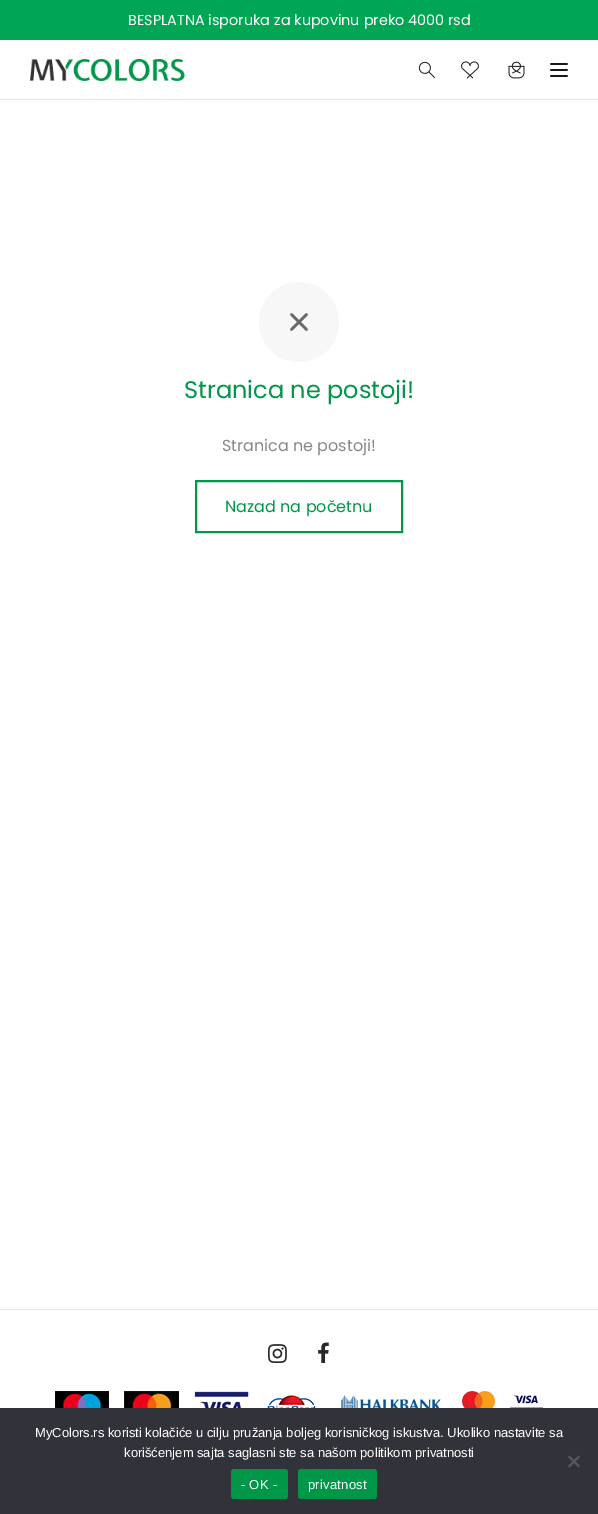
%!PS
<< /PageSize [598 1514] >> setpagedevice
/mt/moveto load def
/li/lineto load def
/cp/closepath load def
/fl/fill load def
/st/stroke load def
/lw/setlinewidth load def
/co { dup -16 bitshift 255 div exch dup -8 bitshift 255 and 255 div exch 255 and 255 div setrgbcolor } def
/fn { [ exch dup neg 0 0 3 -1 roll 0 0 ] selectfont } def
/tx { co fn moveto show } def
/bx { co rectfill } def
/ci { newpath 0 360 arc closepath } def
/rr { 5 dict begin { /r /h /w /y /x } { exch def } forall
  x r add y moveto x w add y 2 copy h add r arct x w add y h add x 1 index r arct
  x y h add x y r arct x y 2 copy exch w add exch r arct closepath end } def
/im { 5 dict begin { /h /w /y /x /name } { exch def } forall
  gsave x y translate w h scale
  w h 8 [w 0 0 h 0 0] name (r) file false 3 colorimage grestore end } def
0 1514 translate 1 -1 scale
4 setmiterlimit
0 0 598 1514 16#FFFFFF bx
0 0 598 40 16#00A653 bx
(media/1.raw) 30 59 155 22 im
(media/2.raw) 418 61 17 17 im
(media/3.raw) 461 61 18 18 im
(media/4.raw) 508 61 17 18 im
(media/5.raw) 550 63 18 14 im
0 99 598 1 16#E6E6E6 bx
16#F7F7F7 co
299 322 40 ci fl
16#686868 co
2.5 lw
1 setlinecap
1 setlinejoin
306.5 314.5 mt 291.5 329.5 li 291.5 314.5 mt 306.5 329.5 li st
16#009848 co
2 lw
0 setlinecap
0 setlinejoin
196 481 206 51 rectstroke
0 1309 598 1 16#E6E6E6 bx
(media/6.raw) 268 1344 19 19 im
(media/7.raw) 318 1342 11 21 im
(media/8.raw) 55 1391 54 17 im
(media/9.raw) 124 1391 55 17 im
(media/10.raw) 194 1391 55 17 im
(media/11.raw) 267 1395 49 13 im
(media/12.raw) 341 1395 101 13 im
(media/13.raw) 462 1391 33 17 im
(media/14.raw) 510 1395 33 13 im
0 1408 598 106 16#32323A bx
16#59595D co
578.5 1455.5 mt 580 1457 li 569.5 1467.5 li 568 1466 li cp fl
568 1457 mt 569.5 1455.5 li 580 1466 li 578.5 1467.5 li cp fl
16#009848 co
231 1469 57 30 3 rr fl
298 1469 79 30 3 rr fl
(BESPLATNA isporuka za kupovinu preko 4000 rsd) 128 25 /Poppins-Regular 14.4 16#FFFFFF tx
(Stranica ne postoji!) 184 398 /Poppins-Regular 24 16#009848 tx
(Stranica ne postoji!) 222 451 /Poppins-Regular 16 16#888888 tx
(Nazad na početnu) 225 512 /Poppins-Regular 16 16#009848 tx
(MyColors.rs koristi kolačiće u cilju pružanja boljeg korisničkog iskustva. Ukoliko nastavite sa) 35 1437 /LiberationSans-Regular 13 16#FFFFFF tx
(korišćenjem sajta saglasni ste sa našom politikom privatnosti) 124 1457 /LiberationSans-Regular 13 16#FFFFFF tx
241 1489 mt .25 0 (- OK -) ashow
308 1489 mt .25 0 (privatnost) ashow
showpage
